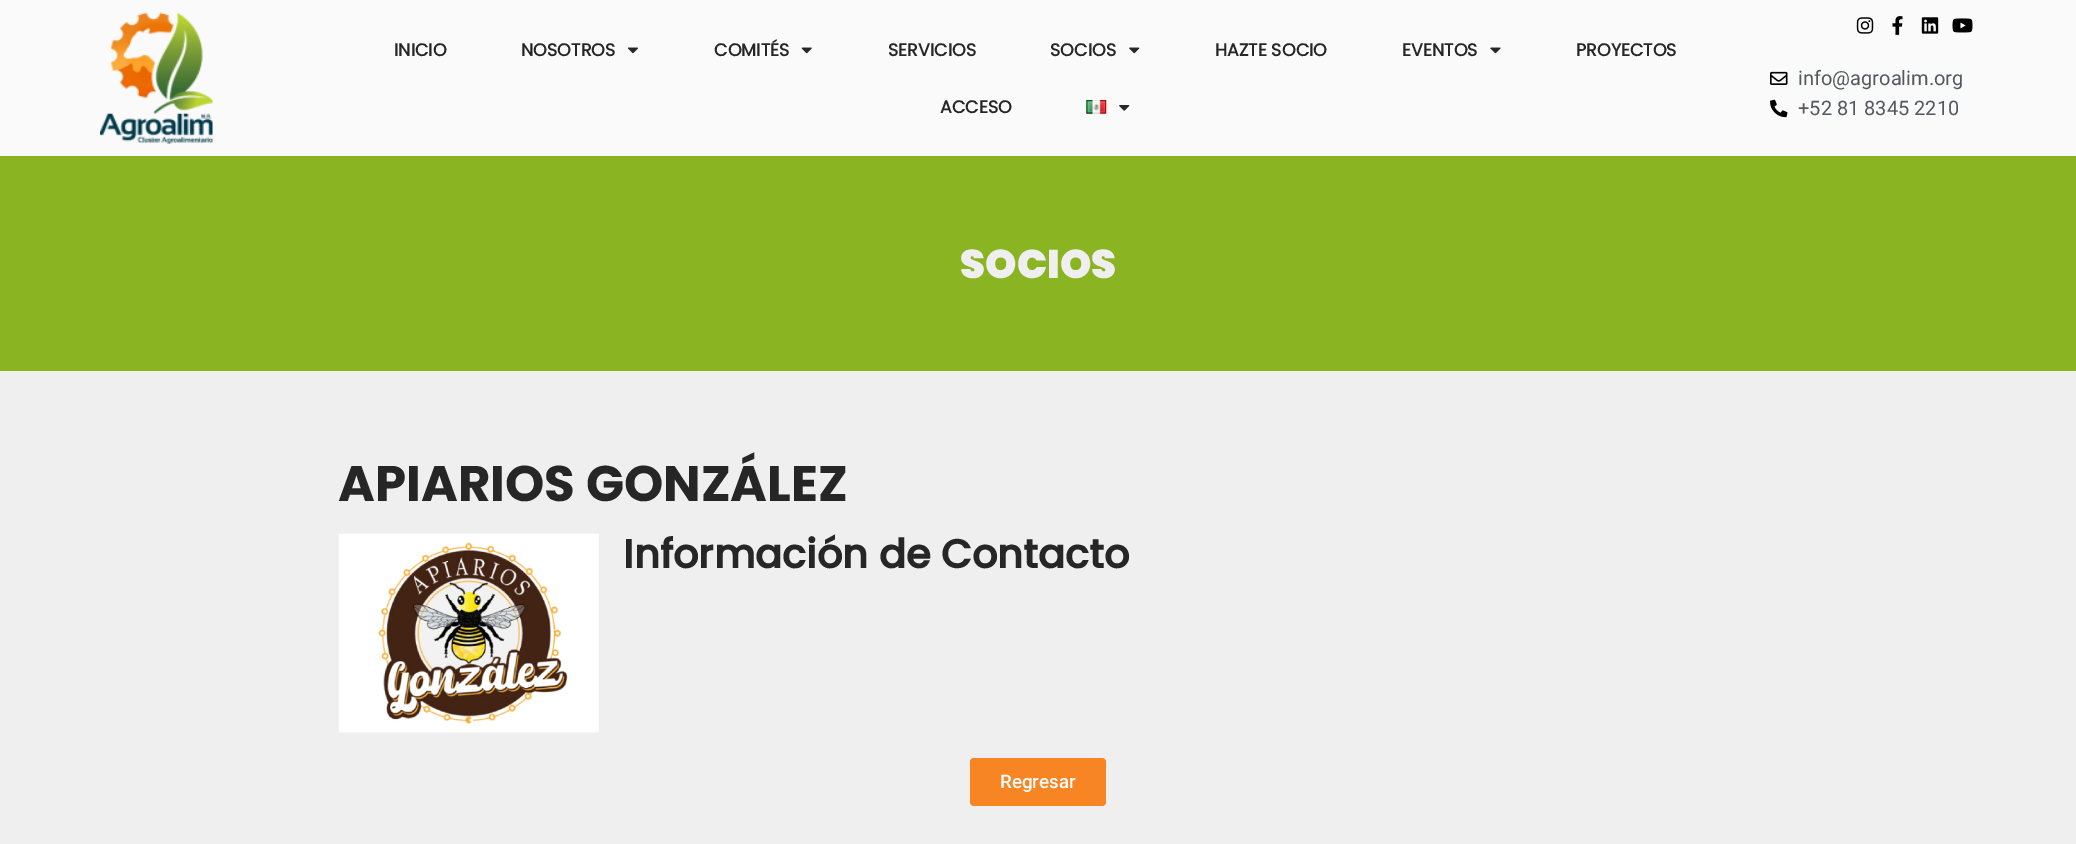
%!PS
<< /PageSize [2076 844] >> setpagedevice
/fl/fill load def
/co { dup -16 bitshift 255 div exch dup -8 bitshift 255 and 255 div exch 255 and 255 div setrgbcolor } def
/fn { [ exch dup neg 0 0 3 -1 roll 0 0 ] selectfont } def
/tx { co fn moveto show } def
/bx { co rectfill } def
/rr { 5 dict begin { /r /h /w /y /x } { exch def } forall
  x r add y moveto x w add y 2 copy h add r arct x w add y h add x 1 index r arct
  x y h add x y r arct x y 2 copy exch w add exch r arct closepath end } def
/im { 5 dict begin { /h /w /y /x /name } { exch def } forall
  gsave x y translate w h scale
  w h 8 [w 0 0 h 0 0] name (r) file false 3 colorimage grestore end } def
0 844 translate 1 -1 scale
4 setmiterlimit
0 0 2076 844 16#FAFAFA bx
(media/1.raw) 100 12 113 132 im
(media/2.raw) 627 47 11 7 im
(media/3.raw) 801 47 11 7 im
(media/4.raw) 1129 47 11 7 im
(media/5.raw) 1490 47 11 7 im
(media/6.raw) 1086 100 21 14 im
(media/7.raw) 1119 105 11 6 im
(media/8.raw) 1856 17 18 17 im
(media/9.raw) 1892 16 11 19 im
(media/10.raw) 1921 17 18 17 im
(media/11.raw) 1952 18 21 15 im
(media/12.raw) 1770 71 18 14 im
(media/13.raw) 1770 99 18 19 im
0 156 2076 215 16#8BB422 bx
0 371 2076 473 16#F0EFEF bx
(media/14.raw) 338 533 261 200 im
16#F88523 co
970 758 136 48 4 rr fl
(INICIO) 394 56 /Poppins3-Bold 17.5 16#262626 tx
(NOSOTROS) 521 56 /Poppins3-Bold 17.5 16#262626 tx
(COMITÉS) 714 56 /Poppins3-Bold 17.5 16#262626 tx
(SERVICIOS) 888 56 /Poppins3-Bold 17.5 16#262626 tx
(SOCIOS) 1050 56 /Poppins3-Bold 17.5 16#262626 tx
(HAZTE SOCIO) 1215 56 /Poppins3-Bold 17.5 16#262626 tx
(EVENTOS) 1402 56 /Poppins3-Bold 17.5 16#262626 tx
(PROYECTOS) 1576 56 /Poppins3-Bold 17.5 16#262626 tx
(ACCESO) 940 113 /Poppins3-Bold 17.5 16#262626 tx
(info@agroalim.org) 1798 85 /Roboto-Regular 20 16#54595F tx
(+52 81 8345 2210) 1798 115 /Roboto-Regular 20 16#54595F tx
(SOCIOS) 960 278 /Poppins-Black 40 16#F0EFEF tx
(APIARIOS GONZÁLEZ) 338 501 /Poppins-Bold 50 16#262626 tx
(Información de Contacto) 623 568 /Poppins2-Bold 40 16#262626 tx
(Regresar) 1000 788 /Roboto-Medium 18.75 16#FFFFFF tx
showpage
